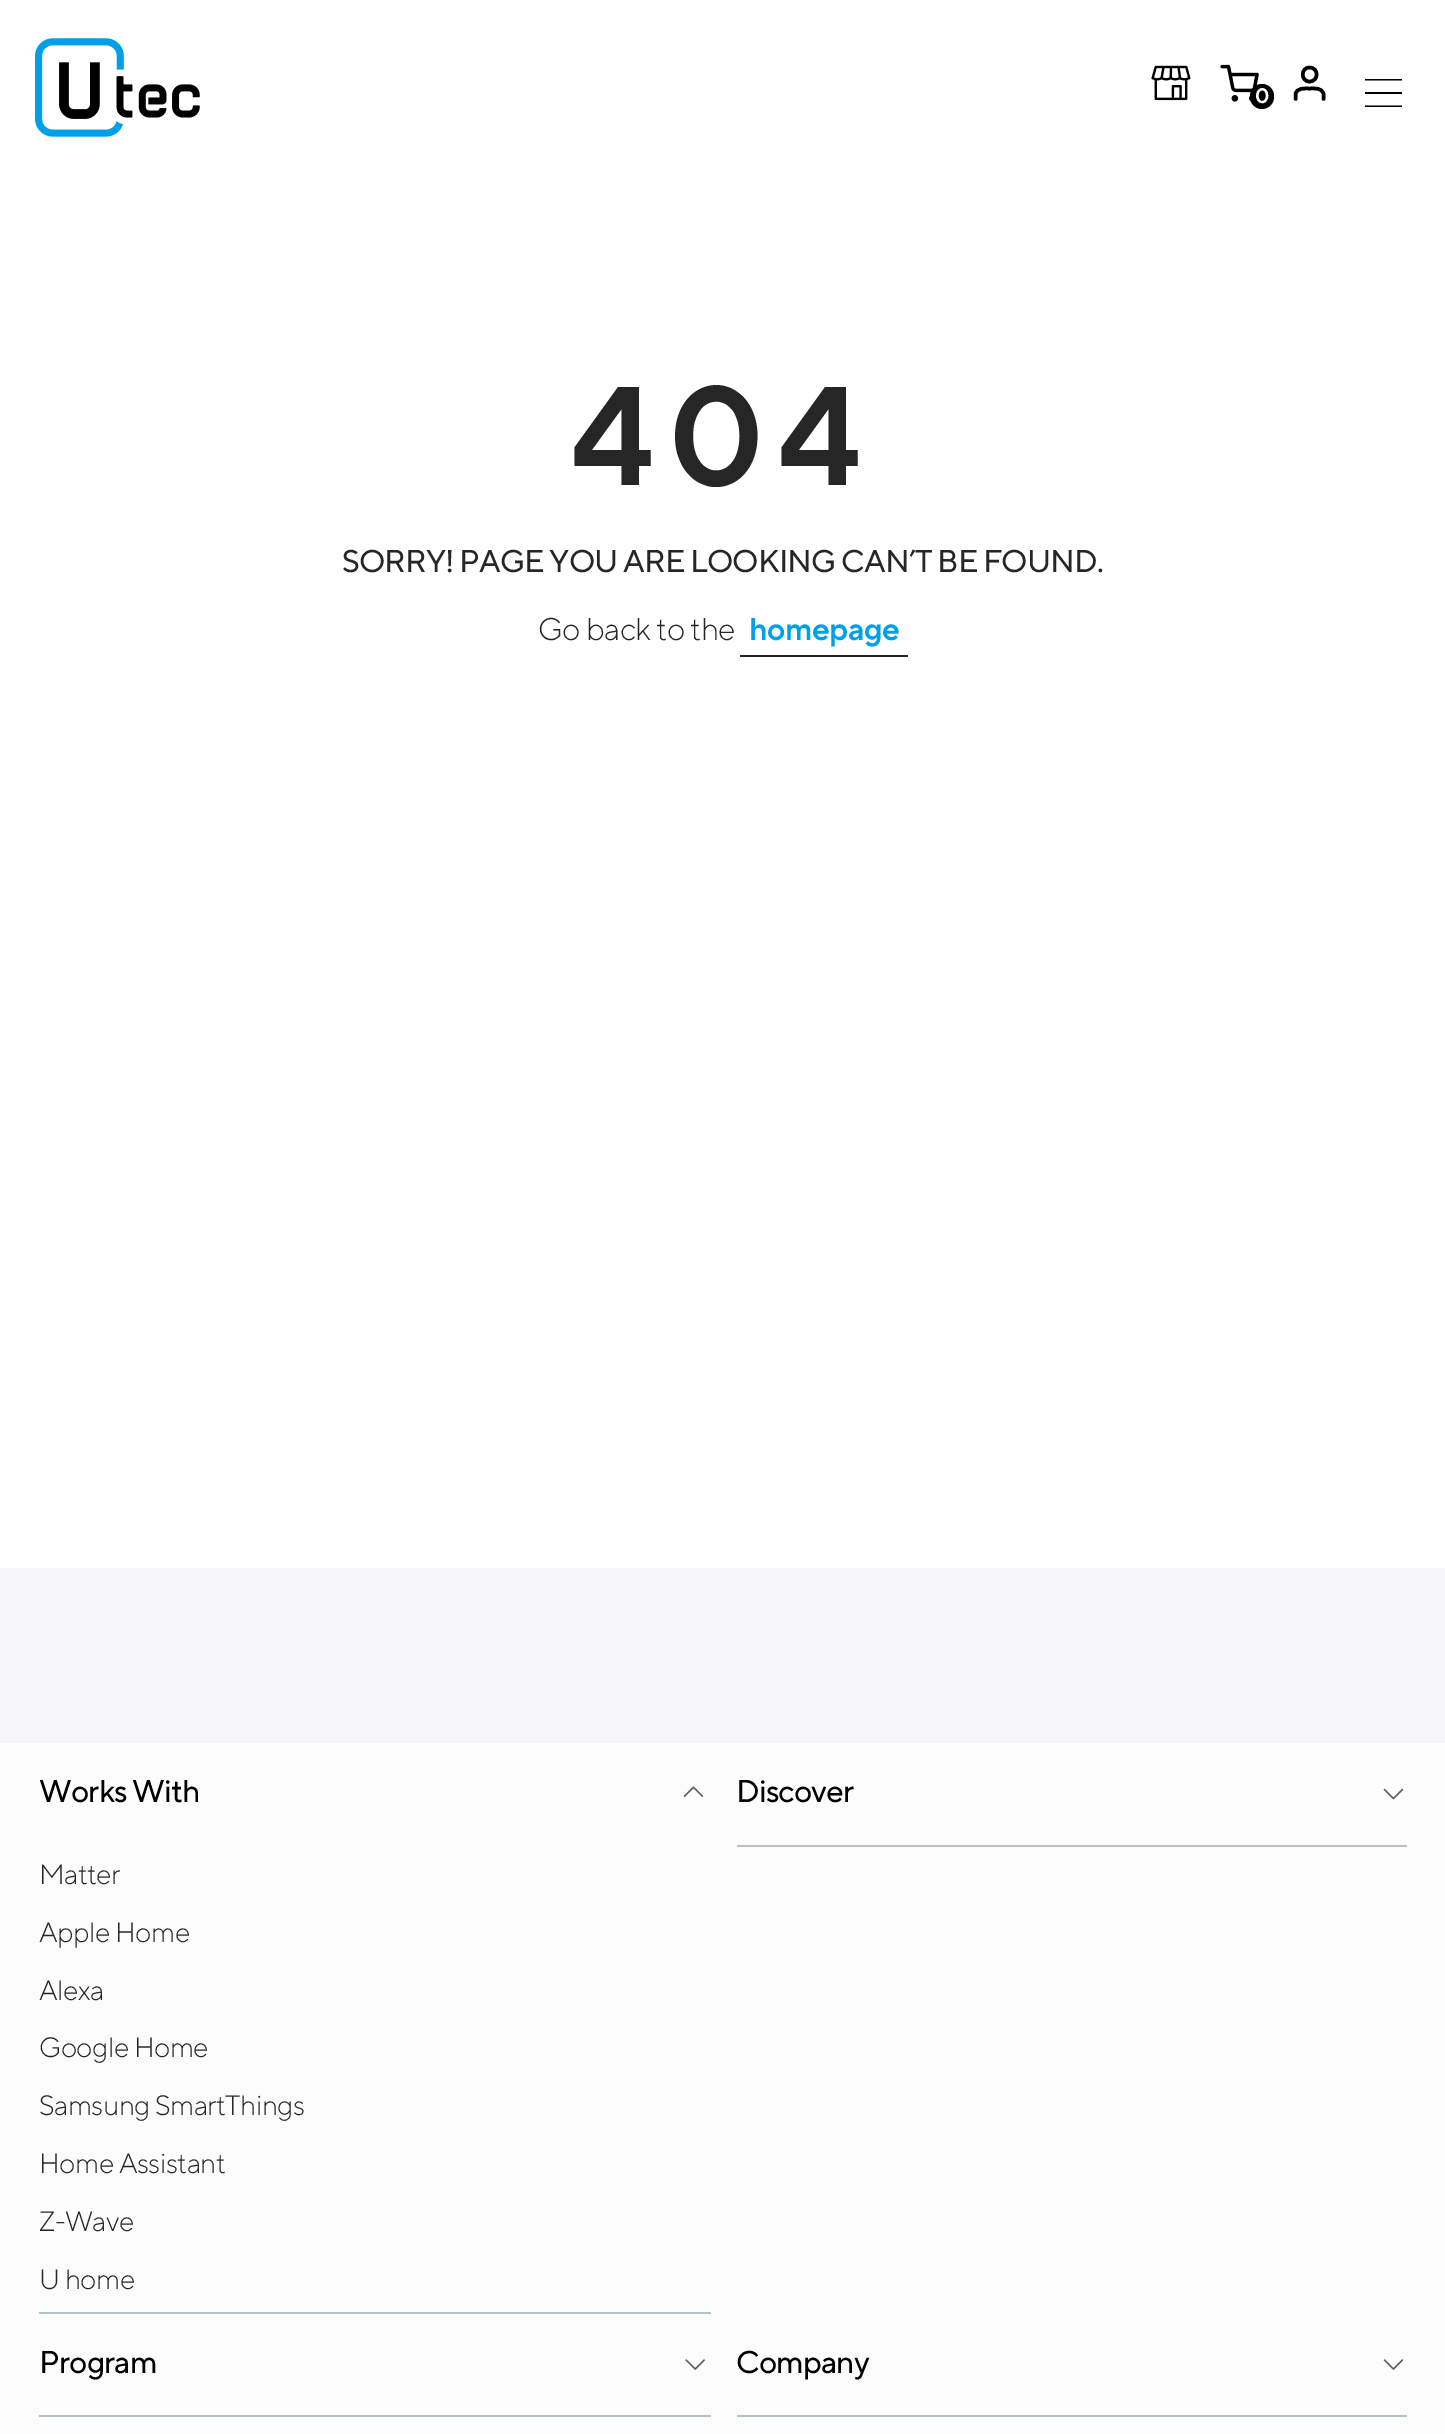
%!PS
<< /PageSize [1445 2434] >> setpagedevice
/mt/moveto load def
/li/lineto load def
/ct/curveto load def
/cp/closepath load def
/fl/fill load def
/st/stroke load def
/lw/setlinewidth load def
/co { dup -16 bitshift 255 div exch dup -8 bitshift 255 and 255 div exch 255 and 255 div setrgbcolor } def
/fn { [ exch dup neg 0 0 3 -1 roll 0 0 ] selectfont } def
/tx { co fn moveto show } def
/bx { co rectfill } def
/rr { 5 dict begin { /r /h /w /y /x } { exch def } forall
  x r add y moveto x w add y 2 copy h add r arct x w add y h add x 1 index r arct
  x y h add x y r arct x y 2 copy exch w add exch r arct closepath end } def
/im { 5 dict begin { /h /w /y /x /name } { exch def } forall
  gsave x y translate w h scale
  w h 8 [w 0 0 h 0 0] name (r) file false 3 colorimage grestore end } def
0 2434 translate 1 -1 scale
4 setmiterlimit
0 0 1445 2434 16#FFFFFF bx
(media/1.raw) 35 38 165 99 im
(media/2.raw) 1151 65 40 36 im
(media/3.raw) 1220 64 39 38 im
16#000000 co
1250 84 24 25 12 rr fl
3.5 lw
1 setlinecap
1 setlinejoin
1323.5 99 mt 1323.5 94 li 1322 87.5 1315 88.5 1309.5 88.5 ct 1304.5 88.5 1297 87.5 1295.5 94 ct 1295.5 99 li 1309.5 81.5 mt 1319 81.5 1319 67.5 1309.5 67.5 ct 1300.5 67.5 1300.5 81.5 1309.5 81.5 ct cp st
1402 80.5 mt 1365 80.5 li 1365 79 li 1402 79 li cp 1402 92 mt 1365 92 li 1365 94 li 1402 94 li cp 1402 105.5 mt 1365 105.5 li 1365 107 li 1402 107 li cp fl
740 655 168 2 16#222222 bx
0 1568 1445 175 16#F6F6F8 bx
0 1743 1445 691 16#FCFCFC bx
39 2312 672 2 16#B4C3CA bx
(media/4.raw) 683 1786 21 11 im
737 1845 670 2 16#B4C3CA bx
(media/5.raw) 1383 1788 21 12 im
39 2415 672 2 16#B4C3CA bx
(media/6.raw) 685 2359 20 11 im
737 2415 670 2 16#B4C3CA bx
(media/7.raw) 1383 2359 21 11 im
(0) 1255 103 /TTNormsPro-SemiBold 21 16#FFFFFF tx
/TTNormsPro-SemiBold 140 fn
16#262626 co
571 485 mt 14 0 (404) ashow
/TTNormsPro-Regular 31.5 fn
342 572 mt -.9 0 (SORRY! PAGE YOU ARE LOOKING CAN’T BE FOUND.) ashow
/TTNormsPro-Light 31.5 fn
538 640 mt -.5 0 (Go back to the) ashow
/TTNormsPro-SemiBold 31.5 fn
16#00A0E8 co
749 640 mt -.5 0 (homepage) ashow
/TTNormsPro-Regular 31.5 fn
16#000000 co
39 1802 mt -.9 0 (Works With) ashow
/TTNormsPro-Light 28 fn
16#262626 co
39 1884 mt -.5 0 (Matter) ashow
39 1942 mt -.5 0 (Apple Home) ashow
39 2000 mt -.5 0 (Alexa) ashow
39 2057 mt -.5 0 (Google Home) ashow
39 2115 mt -.5 0 (Samsung SmartThings) ashow
39 2173 mt -.5 0 (Home Assistant) ashow
39 2231 mt -.5 0 (Z-Wave) ashow
39 2289 mt -.5 0 (U home) ashow
/TTNormsPro-Regular 31.5 fn
16#000000 co
736 1802 mt -.9 0 (Discover) ashow
39 2373 mt -.9 0 (Program) ashow
736 2373 mt -.9 0 (Company) ashow
showpage
